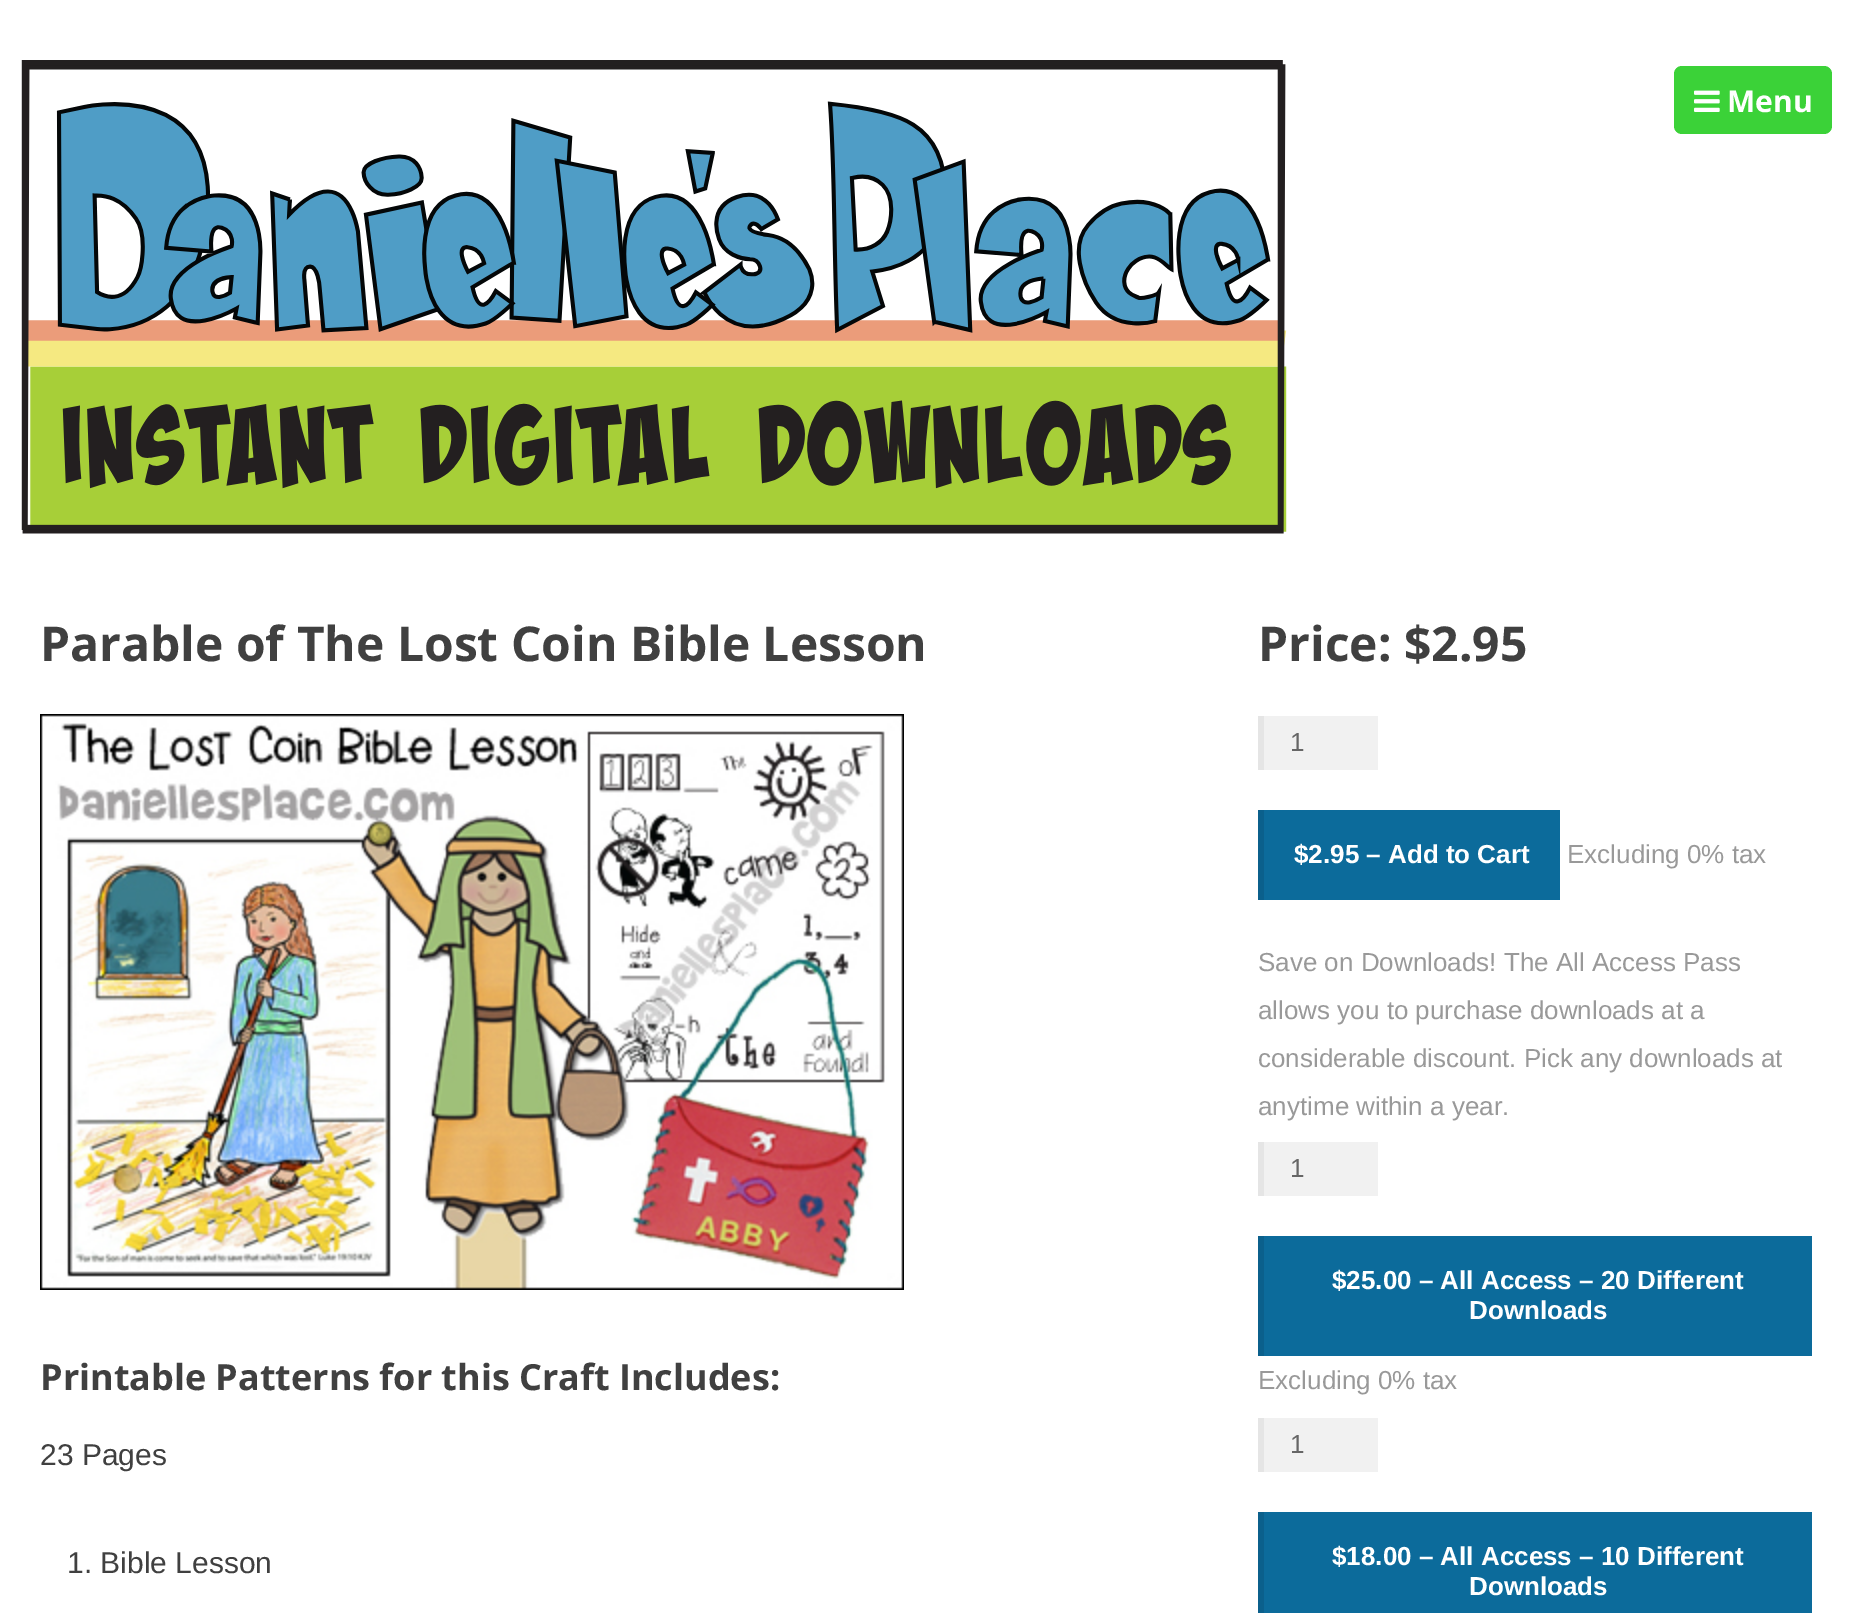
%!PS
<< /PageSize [1852 1613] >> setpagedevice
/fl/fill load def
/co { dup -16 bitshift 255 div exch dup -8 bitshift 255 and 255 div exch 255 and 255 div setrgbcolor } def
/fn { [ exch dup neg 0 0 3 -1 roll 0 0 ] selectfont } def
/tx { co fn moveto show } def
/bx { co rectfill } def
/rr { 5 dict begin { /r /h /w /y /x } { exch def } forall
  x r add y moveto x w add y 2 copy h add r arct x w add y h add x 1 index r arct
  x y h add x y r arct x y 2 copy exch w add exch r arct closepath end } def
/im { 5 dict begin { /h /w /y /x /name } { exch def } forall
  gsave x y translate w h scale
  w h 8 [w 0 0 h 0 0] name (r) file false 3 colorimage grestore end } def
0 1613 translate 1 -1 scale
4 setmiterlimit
0 0 1852 1613 16#FFFFFF bx
(media/1.raw) 21 60 1266 474 im
16#3BD238 co
1674 66 158 68 8 rr fl
(media/2.raw) 1694 90 26 22 im
(media/3.raw) 40 714 864 576 im
1264 716 114 54 16#F1F1F1 bx
1258 716 6 54 16#E5E5E5 bx
1264 810 296 90 16#0C6B9B bx
1258 810 6 90 16#0B608C bx
1264 1142 114 54 16#F1F1F1 bx
1258 1142 6 54 16#E5E5E5 bx
1264 1236 548 120 16#0C6B9B bx
1258 1236 6 120 16#0B608C bx
1264 1418 114 54 16#F1F1F1 bx
1258 1418 6 54 16#E5E5E5 bx
1264 1512 548 101 16#0C6B9B bx
1258 1512 6 101 16#0B608C bx
(Menu) 1727 112 /OpenSans-Bold 30 16#FFFFFF tx
(Parable of The Lost Coin Bible Lesson) 40 661 /OpenSans-Bold 48 16#404040 tx
(Printable Patterns for this Craft Includes:) 40 1390 /OpenSans-Bold 36 16#404040 tx
(23 Pages) 40 1465 /LiberationSans-Regular 30 16#404040 tx
(1. Bible Lesson) 67 1573 /LiberationSans-Regular 30 16#404040 tx
(Price: $2.95) 1258 661 /OpenSans-Bold 48 16#404040 tx
(1) 1290 751 /LiberationSans-Regular 26 16#666666 tx
($2.95 – Add to Cart) 1294 863 /LiberationSans-Bold 26 16#FFFFFF tx
(Excluding 0% tax) 1567 863 /LiberationSans-Regular 26 16#999999 tx
(Save on Downloads! The All Access Pass) 1258 971 /LiberationSans-Regular 26 16#999999 tx
(allows you to purchase downloads at a) 1258 1019 /LiberationSans-Regular 26 16#999999 tx
(considerable discount. Pick any downloads at) 1258 1067 /LiberationSans-Regular 26 16#999999 tx
(anytime within a year.) 1258 1115 /LiberationSans-Regular 26 16#999999 tx
(1) 1290 1177 /LiberationSans-Regular 26 16#666666 tx
($25.00 – All Access – 20 Different) 1332 1289 /LiberationSans-Bold 26 16#FFFFFF tx
(Downloads) 1469 1319 /LiberationSans-Bold 26 16#FFFFFF tx
(Excluding 0% tax) 1258 1389 /LiberationSans-Regular 26 16#999999 tx
(1) 1290 1453 /LiberationSans-Regular 26 16#666666 tx
($18.00 – All Access – 10 Different) 1332 1565 /LiberationSans-Bold 26 16#FFFFFF tx
(Downloads) 1469 1595 /LiberationSans-Bold 26 16#FFFFFF tx
showpage
